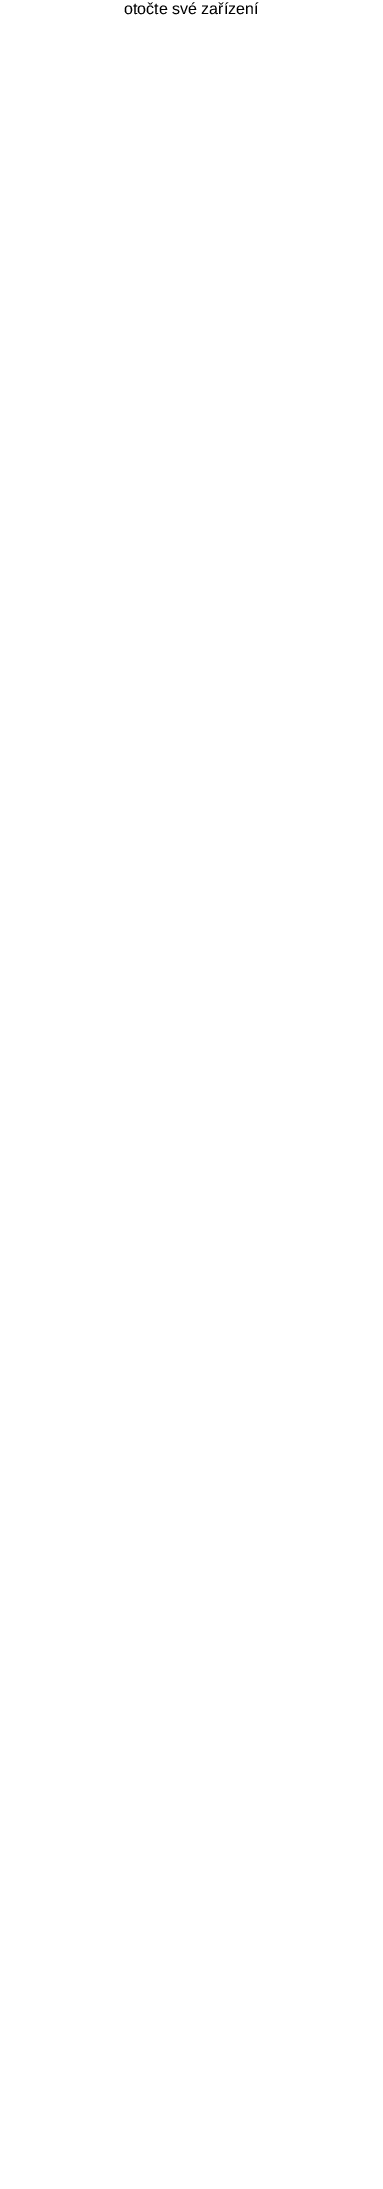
%!PS
<< /PageSize [383 2189] >> setpagedevice
/co { dup -16 bitshift 255 div exch dup -8 bitshift 255 and 255 div exch 255 and 255 div setrgbcolor } def
/fn { [ exch dup neg 0 0 3 -1 roll 0 0 ] selectfont } def
/tx { co fn moveto show } def
/bx { co rectfill } def
0 2189 translate 1 -1 scale
4 setmiterlimit
0 0 383 2189 16#FFFFFF bx
(otočte své zařízení) 124 14 /LiberationSans-Regular 16 16#000000 tx
showpage
